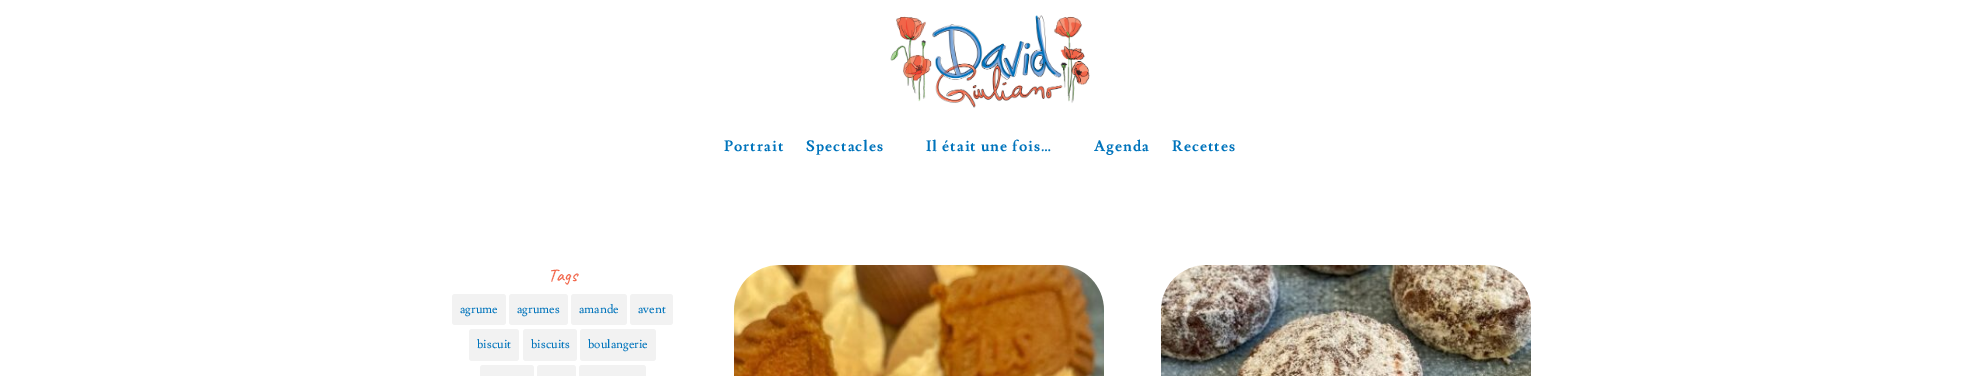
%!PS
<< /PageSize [1980 376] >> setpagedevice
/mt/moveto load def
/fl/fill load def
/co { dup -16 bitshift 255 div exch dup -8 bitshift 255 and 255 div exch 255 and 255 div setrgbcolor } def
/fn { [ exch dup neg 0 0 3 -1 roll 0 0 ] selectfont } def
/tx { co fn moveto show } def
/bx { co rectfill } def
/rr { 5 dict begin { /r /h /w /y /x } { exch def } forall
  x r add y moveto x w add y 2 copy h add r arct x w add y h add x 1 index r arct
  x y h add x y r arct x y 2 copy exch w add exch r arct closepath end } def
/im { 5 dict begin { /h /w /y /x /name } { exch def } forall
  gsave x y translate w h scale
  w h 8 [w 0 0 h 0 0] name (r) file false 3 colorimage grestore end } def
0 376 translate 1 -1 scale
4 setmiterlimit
0 0 1980 376 16#FFFFFF bx
(media/1.raw) 890 15 200 93 im
16#F2F2F2 co
452 294 54 31 3 rr fl
509 294 59 31 3 rr fl
571 294 56 31 3 rr fl
630 294 43 31 3 rr fl
469 329 50 32 3 rr fl
523 329 54 32 3 rr fl
580 329 76 32 3 rr fl
480 365 54 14 3 rr fl
537 365 39 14 3 rr fl
579 365 67 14 3 rr fl
(media/2.raw) 734 265 370 111 im
(media/3.raw) 1161 265 370 111 im
/Lusitana-Bold 15 fn
16#0074BC co
724 151 mt 1 0 (Portrait) ashow
806 151 mt 1 0 (Spectacles) ashow
926 151 mt 1 0 (Il était une fois…) ashow
1094 151 mt 1 0 (Agenda) ashow
1172 151 mt 1 0 (Recettes) ashow
(Tags) 548 281 /Caveat-Medium 18 16#F26549 tx
(agrume) 460 313 /Lusitana-Regular 12 16#0074BC tx
(agrumes) 517 313 /Lusitana-Regular 12 16#0074BC tx
(amande) 579 313 /Lusitana-Regular 12 16#0074BC tx
(avent) 638 313 /Lusitana-Regular 12 16#0074BC tx
(biscuit) 477 348 /Lusitana-Regular 12 16#0074BC tx
(biscuits) 531 348 /Lusitana-Regular 12 16#0074BC tx
(boulangerie) 588 348 /Lusitana-Regular 12 16#0074BC tx
showpage
